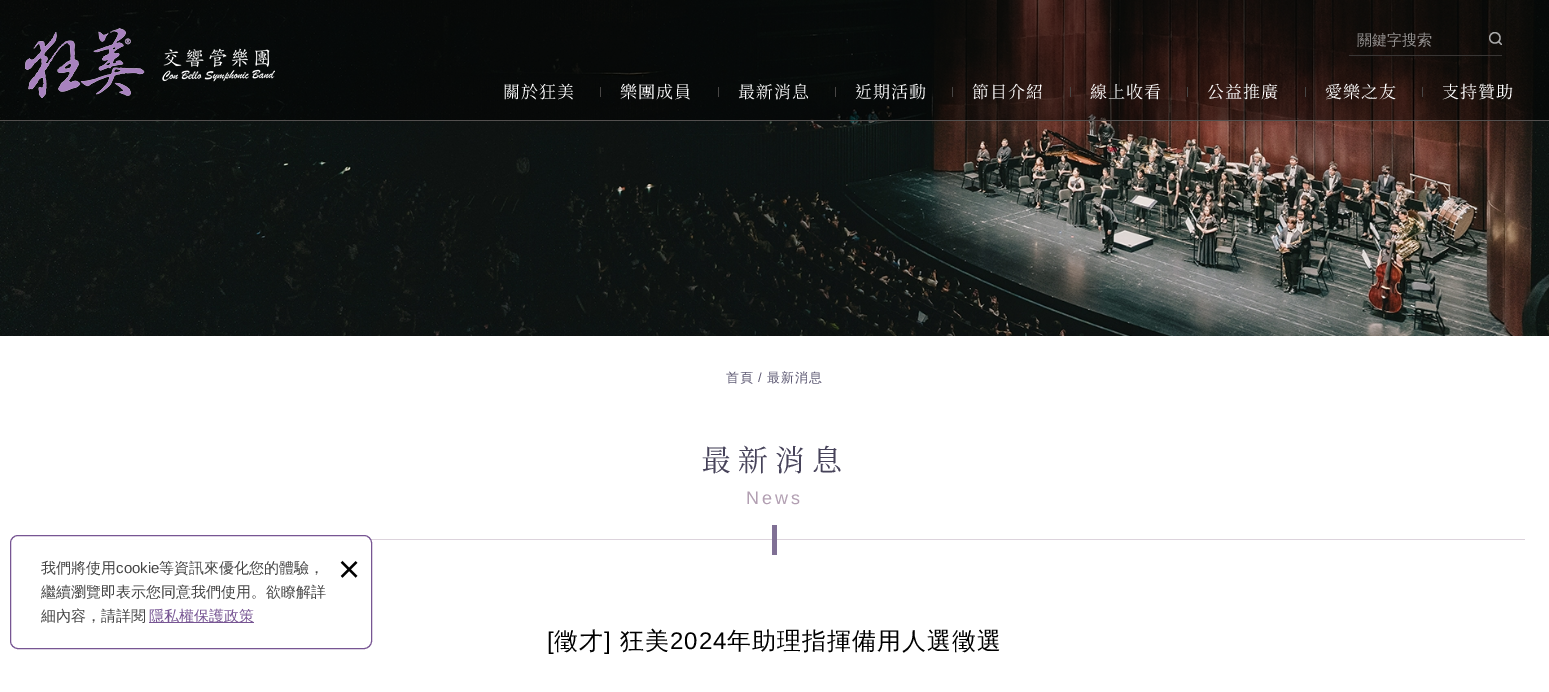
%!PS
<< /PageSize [1549 692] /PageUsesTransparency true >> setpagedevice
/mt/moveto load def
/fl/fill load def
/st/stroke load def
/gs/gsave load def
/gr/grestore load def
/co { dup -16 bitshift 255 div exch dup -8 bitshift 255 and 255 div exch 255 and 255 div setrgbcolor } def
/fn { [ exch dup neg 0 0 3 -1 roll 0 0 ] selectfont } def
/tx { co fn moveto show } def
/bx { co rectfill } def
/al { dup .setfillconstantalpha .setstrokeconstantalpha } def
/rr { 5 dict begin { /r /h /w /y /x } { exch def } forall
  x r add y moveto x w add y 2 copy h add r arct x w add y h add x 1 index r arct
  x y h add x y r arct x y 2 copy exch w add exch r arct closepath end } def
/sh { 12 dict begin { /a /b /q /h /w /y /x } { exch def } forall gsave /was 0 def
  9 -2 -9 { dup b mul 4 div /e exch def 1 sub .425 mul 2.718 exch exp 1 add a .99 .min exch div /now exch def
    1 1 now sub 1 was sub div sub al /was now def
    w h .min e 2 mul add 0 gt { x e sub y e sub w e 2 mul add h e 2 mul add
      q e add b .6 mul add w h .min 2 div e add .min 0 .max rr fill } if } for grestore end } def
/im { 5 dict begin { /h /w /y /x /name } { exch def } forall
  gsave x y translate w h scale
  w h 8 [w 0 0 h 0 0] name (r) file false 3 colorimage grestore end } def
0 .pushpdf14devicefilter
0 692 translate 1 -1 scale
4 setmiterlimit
0 0 1549 692 16#FFFFFF bx
(media/1.raw) 0 0 1549 336 im
gs
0 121 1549 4 rectclip
16#000000 co
0 0 1549 121 0 5 .1 sh
gr
0.5 al
0 0 1549 120 16#000000 bx
1 al
0 120 1549 1 16#53504F bx
(media/2.raw) 25 28 250 70 im
1349 55 153 1 16#393635 bx
(media/3.raw) 1489 32 13 13 im
600 87 1 10 16#484645 bx
718 87 1 10 16#484645 bx
835 87 1 10 16#484645 bx
952 87 1 10 16#484645 bx
1070 87 1 10 16#484645 bx
1187 87 1 10 16#484645 bx
1305 87 1 10 16#484645 bx
1422 87 1 10 16#484645 bx
25 539 1500 1 16#DCD3DC bx
0.9 al
16#FFFFFF co
10.5 535.5 361 113 7.5 rr fl
1 al
16#775593 co
10.5 535.5 361 113 7.5 rr st
149 622 105 1 16#775593 bx
772 525 5 30 16#807095 bx
(關鍵字搜索) 1357 45 /WenQuanYiZenHei-Medium 15 16#93908F tx
/NotoSerifTC-Regular 17 fn
16#FFFFFF co
503 98 mt 1 0 (關於狂美) ashow
620 98 mt 1 0 (樂團成員) ashow
738 98 mt 1 0 (最新消息) ashow
855 98 mt 1 0 (近期活動) ashow
972 98 mt 1 0 (節目介紹) ashow
1090 98 mt 1 0 (線上收看) ashow
1207 98 mt 1 0 (公益推廣) ashow
1325 98 mt 1 0 (愛樂之友) ashow
1442 98 mt 1 0 (支持贊助) ashow
(我們將使用) 41 573 /WenQuanYiZenHei-Medium 15 16#444444 tx
(cookie) 116 573 /LiberationSans-Regular 15 16#444444 tx
(等資訊來優化您的體驗，) 159 573 /WenQuanYiZenHei-Medium 15 16#444444 tx
(繼續瀏覽即表示您同意我們使用。欲瞭解詳) 41 597 /WenQuanYiZenHei-Medium 15 16#444444 tx
(細內容，請詳閱) 41 621 /WenQuanYiZenHei-Medium 15 16#444444 tx
(隱私權保護政策) 149 621 /WenQuanYiZenHei-Medium 15 16#775593 tx
(×) 338 582 /LiberationSans-Regular 38 16#000000 tx
/WenQuanYiZenHei-Medium 13 fn
16#5C5872 co
726 382 mt 1 0 (首頁) ashow
/LiberationSans-Regular 13 fn
758 382 mt 1 0 (/) ashow
/WenQuanYiZenHei-Medium 13 fn
767 382 mt 1 0 (最新消息) ashow
/NotoSerifTC-Regular 30 fn
16#47435A co
701 471 mt 7 0 (最新消息) ashow
/LiberationSans-Regular 18 fn
16#B29FB2 co
746 504 mt 3 0 (News) ashow
/LiberationSans-Regular 24 fn
16#000000 co
547 649 mt 1 0 ([) ashow
/WenQuanYiZenHei-Medium 24 fn
554 649 mt 1 0 (徵才) ashow
/LiberationSans-Regular 24 fn
604 649 mt 1 0 (]) ashow
/WenQuanYiZenHei-Medium 24 fn
620 649 mt 1 0 (狂美) ashow
/LiberationSans-Regular 24 fn
670 649 mt 1 0 (2024) ashow
/WenQuanYiZenHei-Medium 24 fn
727 649 mt 1 0 (年助理指揮備用人選徵選) ashow
.poppdf14devicefilter showpage
